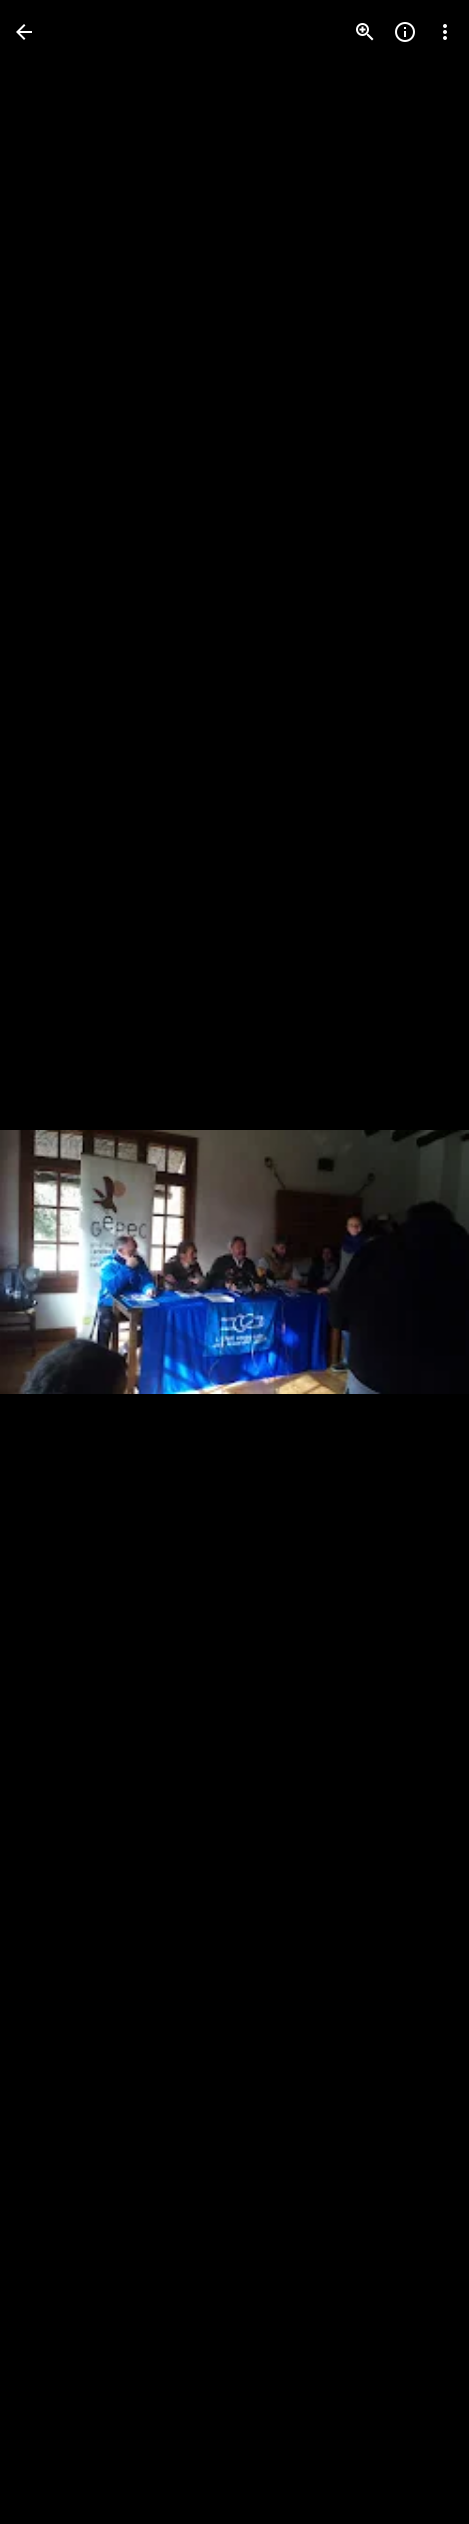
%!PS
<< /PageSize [469 2524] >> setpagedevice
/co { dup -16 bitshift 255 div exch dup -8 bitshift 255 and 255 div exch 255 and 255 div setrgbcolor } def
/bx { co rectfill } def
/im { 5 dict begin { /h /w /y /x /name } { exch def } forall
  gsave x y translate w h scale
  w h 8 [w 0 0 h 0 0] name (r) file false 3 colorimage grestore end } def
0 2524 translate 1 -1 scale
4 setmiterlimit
0 0 469 2524 16#000000 bx
(media/1.raw) 16 24 16 16 im
(media/2.raw) 356 23 18 18 im
(media/3.raw) 395 22 20 20 im
(media/4.raw) 443 24 4 16 im
(media/5.raw) 0 1130 469 264 im
showpage
